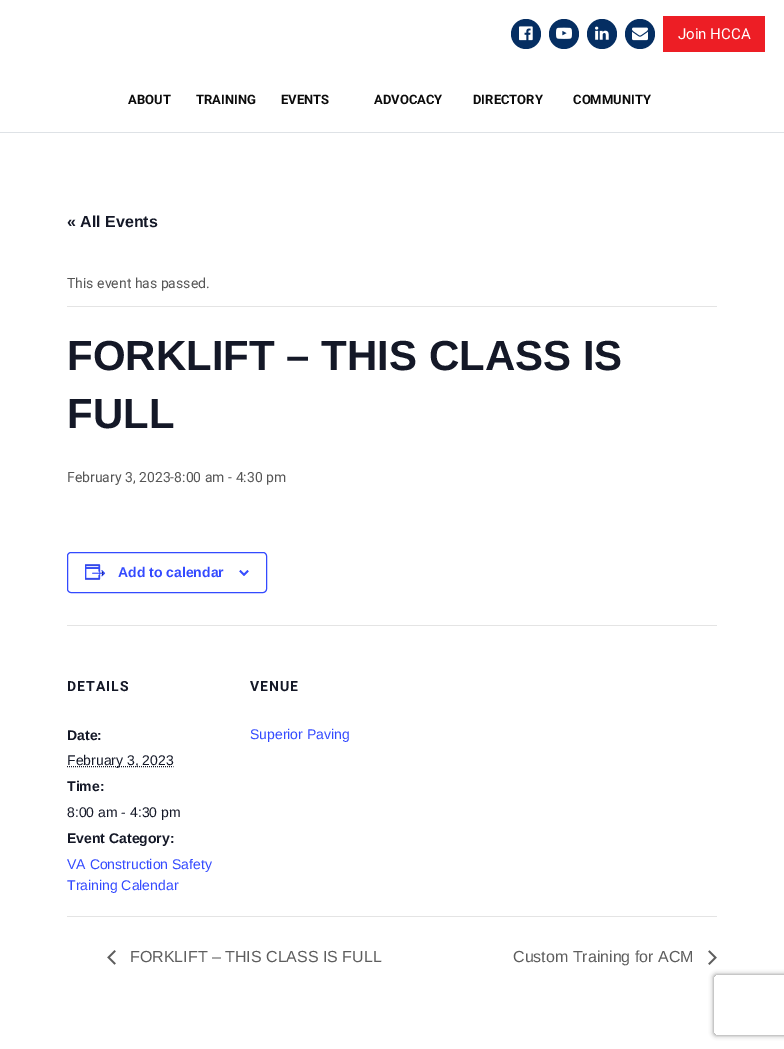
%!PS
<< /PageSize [784 1049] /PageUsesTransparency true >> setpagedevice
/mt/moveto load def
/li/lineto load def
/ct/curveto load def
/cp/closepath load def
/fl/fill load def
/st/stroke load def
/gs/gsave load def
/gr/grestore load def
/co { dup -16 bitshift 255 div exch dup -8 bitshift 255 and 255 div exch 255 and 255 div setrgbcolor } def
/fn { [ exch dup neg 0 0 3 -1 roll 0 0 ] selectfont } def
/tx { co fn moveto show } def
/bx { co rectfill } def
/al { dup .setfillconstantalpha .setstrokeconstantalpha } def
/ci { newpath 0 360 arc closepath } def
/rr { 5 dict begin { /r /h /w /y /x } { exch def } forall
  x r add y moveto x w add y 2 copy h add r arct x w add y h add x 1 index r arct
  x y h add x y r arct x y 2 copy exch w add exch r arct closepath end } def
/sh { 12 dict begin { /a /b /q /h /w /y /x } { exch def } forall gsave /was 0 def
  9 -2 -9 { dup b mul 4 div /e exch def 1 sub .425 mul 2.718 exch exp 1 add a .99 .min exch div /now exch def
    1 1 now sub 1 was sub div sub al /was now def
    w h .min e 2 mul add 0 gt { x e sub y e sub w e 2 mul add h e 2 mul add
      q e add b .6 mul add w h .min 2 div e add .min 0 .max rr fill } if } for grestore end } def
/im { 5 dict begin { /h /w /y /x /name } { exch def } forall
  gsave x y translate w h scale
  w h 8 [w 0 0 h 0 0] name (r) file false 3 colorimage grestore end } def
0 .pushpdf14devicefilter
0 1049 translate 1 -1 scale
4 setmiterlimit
0 0 784 1049 16#FFFFFF bx
0 132 784 1 16#DEE2E6 bx
16#052E62 co
526 34 15 ci fl
(media/1.raw) 519 26 14 15 im
564 34 15 ci fl
(media/2.raw) 556 27 16 12 im
602 34 15 ci fl
(media/3.raw) 595 26 14 14 im
640 34 15 ci fl
(media/4.raw) 632 27 16 14 im
663 16 102 36 16#ED1E25 bx
67 306 650 1 16#E4E4E4 bx
16#334AFF co
67.5 552.5 199 40 3.5 rr st
(media/5.raw) 85 564 21 16 im
(media/6.raw) 239 570 10 6 im
67 625 650 1 16#E4E4E4 bx
16#141827 co
[1 1] 0 setdash
67 766.5 mt 173.5 766.5 li st
67 916 650 1 16#E4E4E4 bx
(media/7.raw) 107 950 9 15 im
(media/8.raw) 708 950 9 15 im
gs
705 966 mt 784 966 li 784 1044 li 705 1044 li cp 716 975 mt 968 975 li 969 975 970 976 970 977 ct 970 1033 li 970 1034 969 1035 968 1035 ct 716 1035 li 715 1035 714 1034 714 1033 ct 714 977 li 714 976 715 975 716 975 ct cp eoclip newpath
16#808080 co
714 975 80 60 2 2.5 1 sh
gr
(Join HCCA) 678 39 /Roboto-Regular 15 16#FFFFFF tx
(ABOUT) 128 104 /Roboto-Bold 13 16#0B0B0B tx
(TRAINING) 196 104 /Roboto-Bold 13 16#0B0B0B tx
(EVENTS) 281 104 /Roboto-Bold 13 16#0B0B0B tx
(ADVOCACY) 374 104 /Roboto-Bold 13 16#0B0B0B tx
(DIRECTORY) 473 104 /Roboto-Bold 13 16#0B0B0B tx
(COMMUNITY) 573 104 /Roboto-Bold 13 16#0B0B0B tx
(« All Events) 67 227 /LiberationSans-Bold 16 16#141827 tx
(This event has passed.) 67 288 /Roboto-Regular 14 16#555555 tx
(FORKLIFT – THIS CLASS IS) 67 370 /LiberationSans-Bold 42 16#141827 tx
(FULL) 67 428 /LiberationSans-Bold 42 16#141827 tx
(February 3, 2023-8:00 am - 4:30 pm) 67 482 /Roboto-Regular 14 16#555555 tx
(Add to calendar) 118 577 /LiberationSans-Bold 14 16#334AFF tx
/Roboto-Bold 14 fn
16#141827 co
67 691 mt 1 0 (DETAILS) ashow
(Date:) 67 740 /LiberationSans-Bold 14 16#141827 tx
(February 3, 2023) 67 765 /LiberationSans-Regular 14 16#141827 tx
(Time:) 67 791 /LiberationSans-Bold 14 16#141827 tx
(8:00 am - 4:30 pm) 67 817 /LiberationSans-Regular 14 16#141827 tx
(Event Category:) 67 843 /LiberationSans-Bold 14 16#141827 tx
(VA Construction Safety) 67 869 /LiberationSans-Regular 14 16#334AFF tx
(Training Calendar) 67 890 /LiberationSans-Regular 14 16#334AFF tx
/Roboto-Bold 14 fn
16#141827 co
250 691 mt 1 0 (VENUE) ashow
(Superior Paving) 250 739 /LiberationSans-Regular 14 16#334AFF tx
(FORKLIFT – THIS CLASS IS FULL) 130 962 /LiberationSans-Regular 16 16#5D5D5D tx
(Custom Training for ACM) 513 962 /LiberationSans-Regular 16 16#5D5D5D tx
.poppdf14devicefilter showpage
